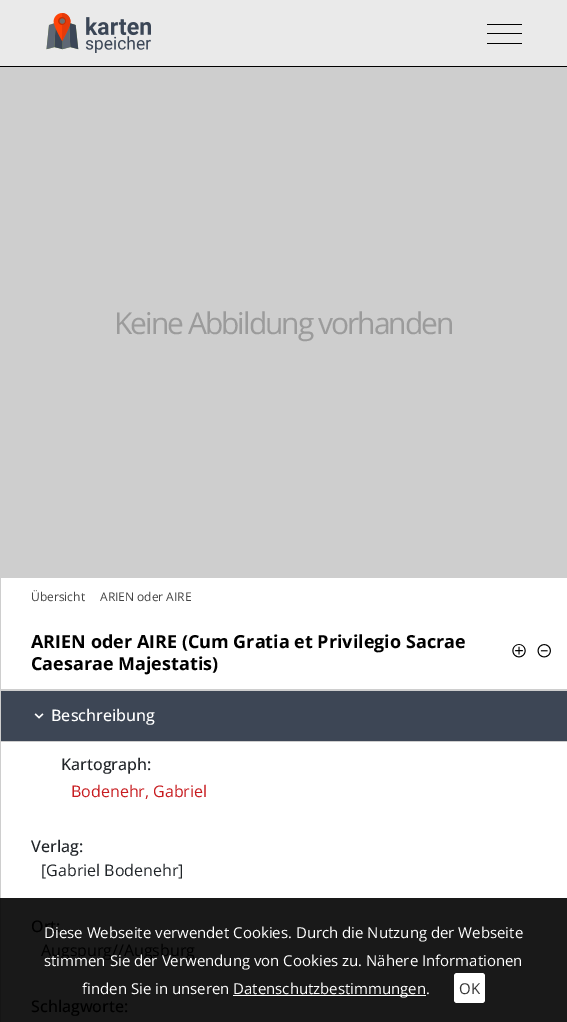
%!PS
<< /PageSize [567 1022] >> setpagedevice
/mt/moveto load def
/fl/fill load def
/co { dup -16 bitshift 255 div exch dup -8 bitshift 255 and 255 div exch 255 and 255 div setrgbcolor } def
/fn { [ exch dup neg 0 0 3 -1 roll 0 0 ] selectfont } def
/tx { co fn moveto show } def
/bx { co rectfill } def
/rr { 5 dict begin { /r /h /w /y /x } { exch def } forall
  x r add y moveto x w add y 2 copy h add r arct x w add y h add x 1 index r arct
  x y h add x y r arct x y 2 copy exch w add exch r arct closepath end } def
/im { 5 dict begin { /h /w /y /x /name } { exch def } forall
  gsave x y translate w h scale
  w h 8 [w 0 0 h 0 0] name (r) file false 3 colorimage grestore end } def
0 1022 translate 1 -1 scale
4 setmiterlimit
0 0 567 1022 16#EAEAEA bx
0 66 567 1 16#000000 bx
(media/1.raw) 46 13 105 40 im
487 24 35 1 16#000000 bx
487 33 35 1 16#000000 bx
487 43 35 1 16#000000 bx
0 67 567 511 16#CECECE bx
0 578 1 320 16#CECECE bx
0 898 1 124 16#151515 bx
1 578 566 320 16#FFFFFF bx
1 898 566 124 16#191919 bx
1 689 566 2 16#CECECE bx
(media/2.raw) 512 644 14 14 im
(media/3.raw) 537 644 14 14 im
1 691 566 50 16#3D4655 bx
1 741 566 1 16#CECECE bx
(media/4.raw) 34 713 10 6 im
233 995 193 1 16#FFFFFF bx
454 973 31 30 3 rr fl
/OpenSans-Regular 30 fn
16#9B9B9B co
114 334 mt -2 0 (Keine Abbildung vorhanden) ashow
(Übersicht) 31 601 /OpenSans-Regular 12 16#444444 tx
(ARIEN oder AIRE) 100 601 /OpenSans-Regular 12 16#444444 tx
(ARIEN oder AIRE \(Cum Gratia et Privilegio Sacrae) 31 648 /OpenSans-Bold 18 16#000000 tx
(Caesarae Majestatis\)) 31 670 /OpenSans-Bold 18 16#000000 tx
(Beschreibung) 51 721 /OpenSans-Medium 16 16#FFFFFF tx
(Kartograph:) 61 770 /OpenSans-Medium 16 16#212529 tx
(Bodenehr, Gabriel) 71 797 /OpenSans-Regular 16 16#C81C20 tx
(Verlag:) 31 852 /OpenSans-Medium 16 16#212529 tx
([Gabriel Bodenehr]) 41 876 /OpenSans-Regular 16 16#212529 tx
(Ort:) 31 932 /OpenSans-Medium 16 16#000000 tx
(Augspurg//Augsburg) 41 956 /OpenSans-Regular 16 16#000000 tx
(Schlagworte:) 31 1012 /OpenSans-Medium 16 16#000000 tx
(Diese Webseite verwendet Cookies. Durch die Nutzung der Webseite) 44 938 /OpenSans-Regular 15 16#FFFFFF tx
(stimmen Sie der Verwendung von Cookies zu. Nähere Informationen) 44 966 /OpenSans-Regular 15 16#FFFFFF tx
(finden Sie in unseren) 82 994 /OpenSans-Regular 15 16#FFFFFF tx
(Datenschutzbestimmungen.) 233 994 /OpenSans-Regular 15 16#FFFFFF tx
(OK) 459 994 /OpenSans-Regular 15 16#333333 tx
showpage
